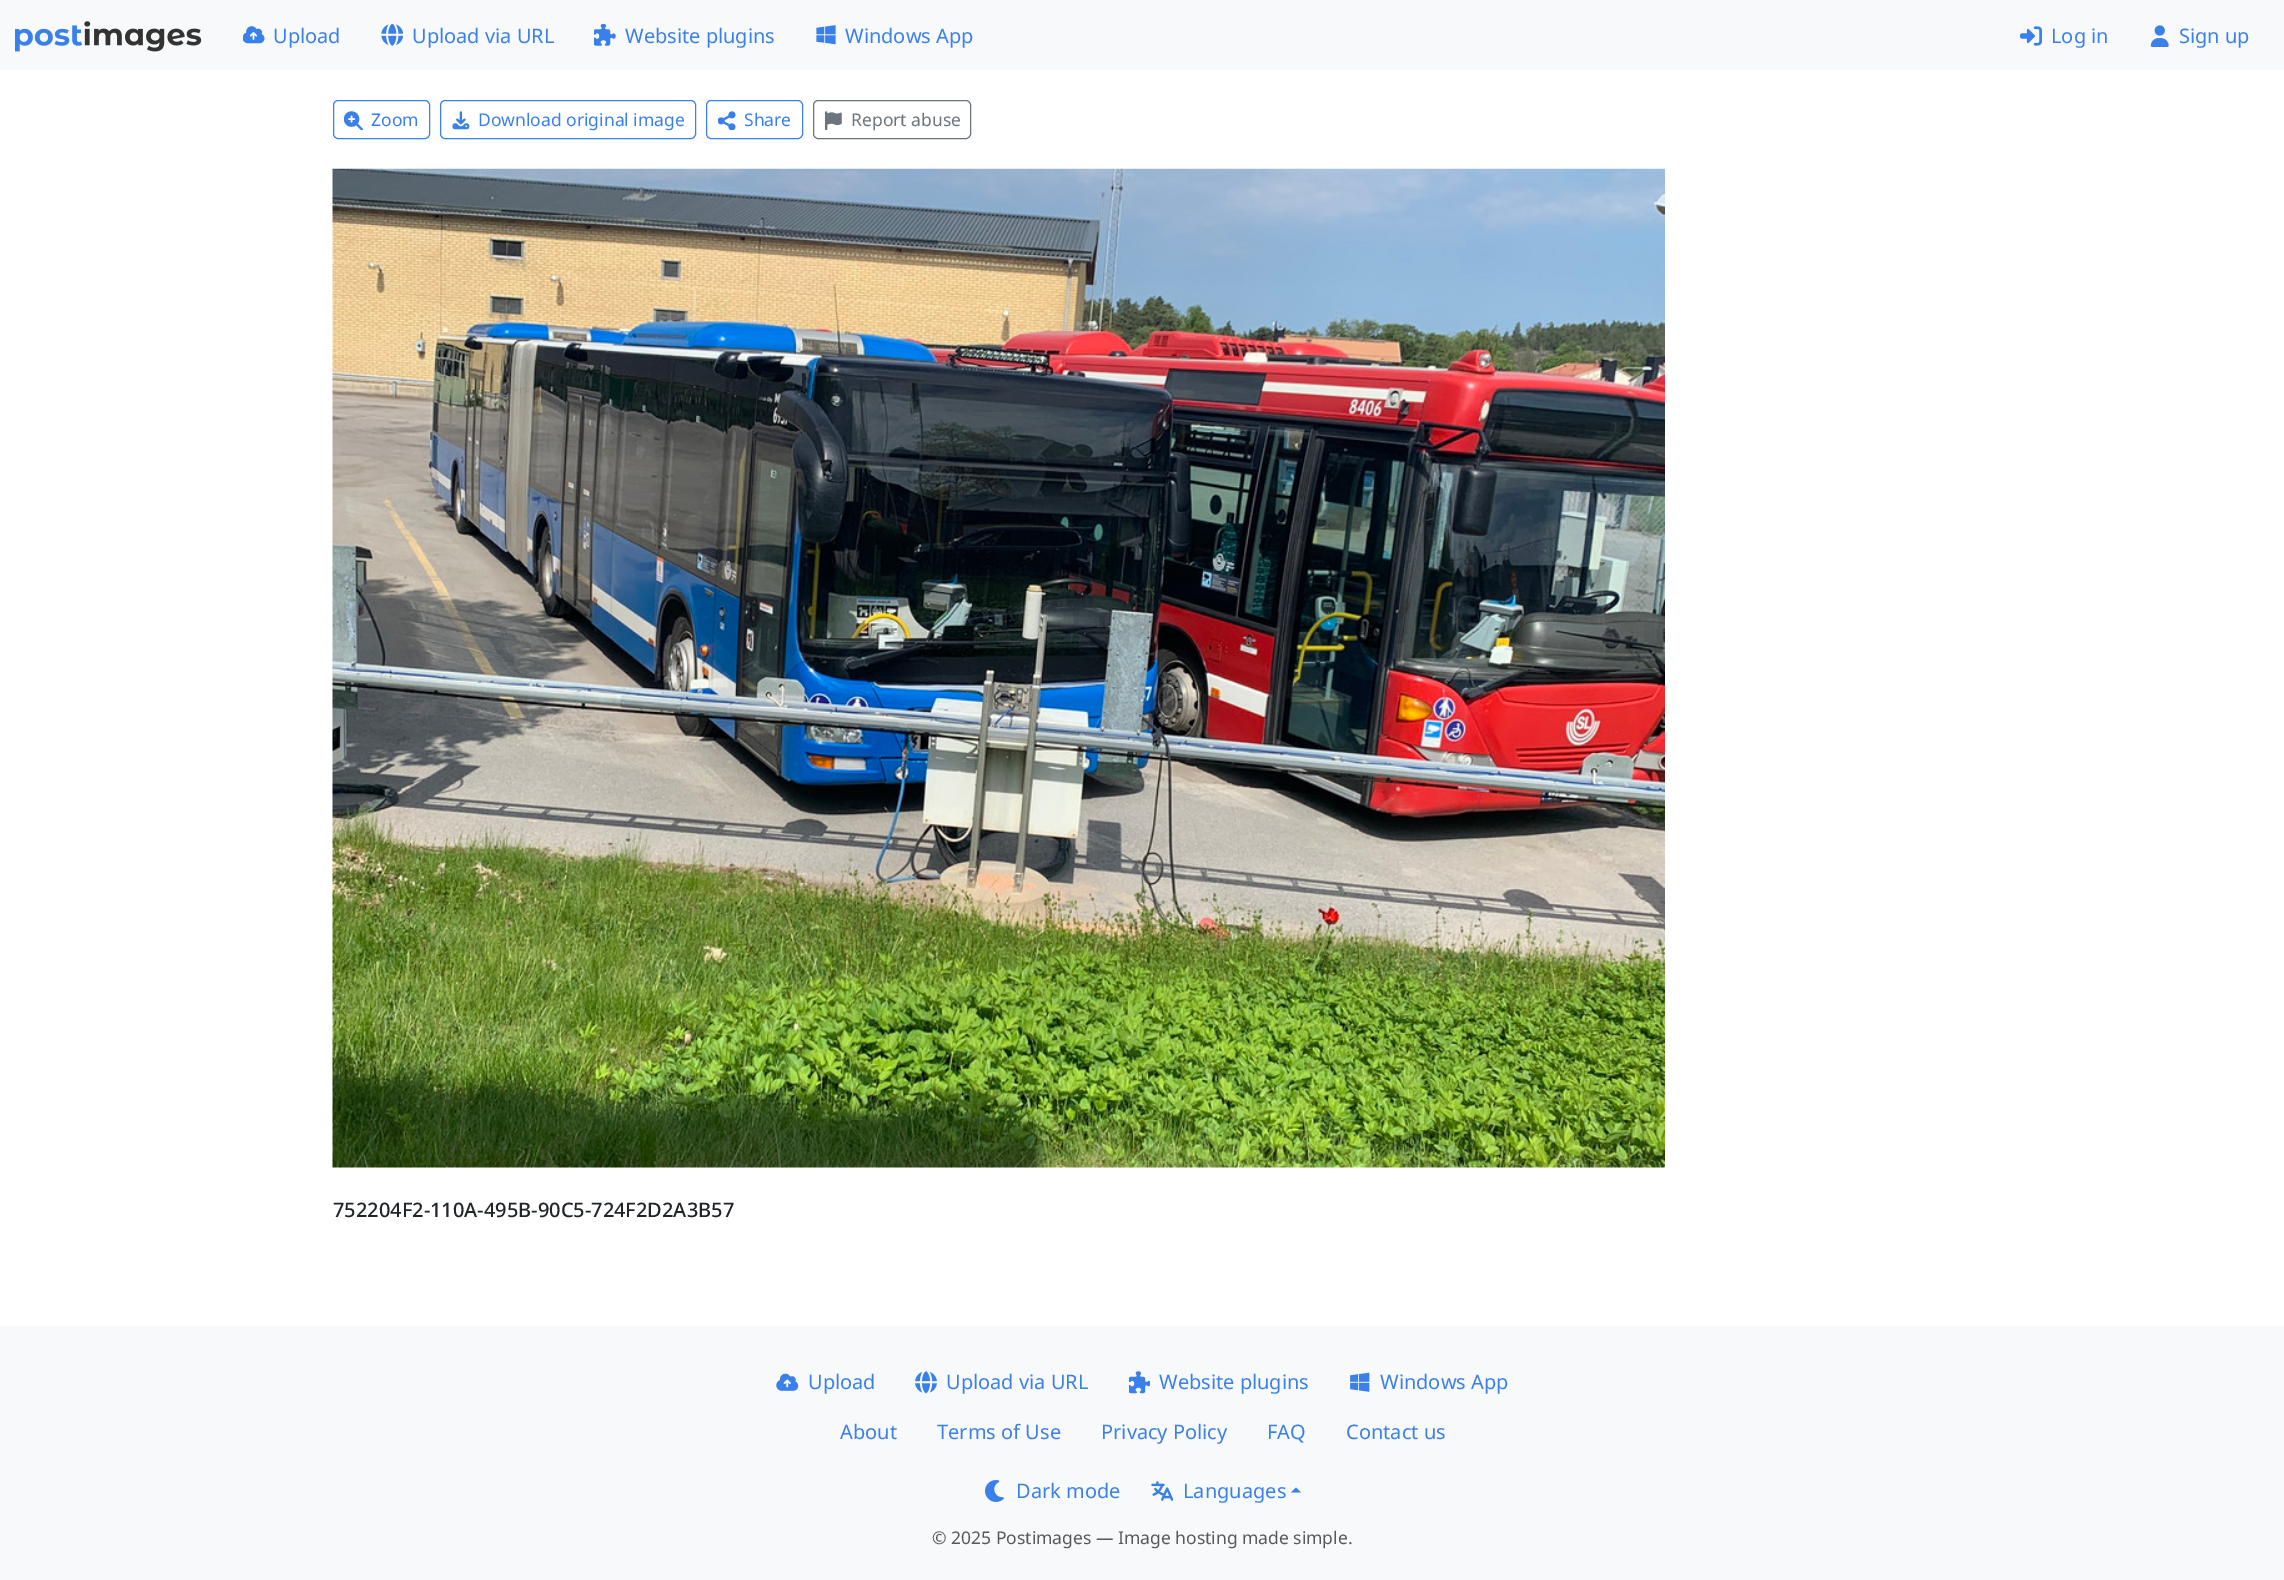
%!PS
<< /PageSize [2284 1580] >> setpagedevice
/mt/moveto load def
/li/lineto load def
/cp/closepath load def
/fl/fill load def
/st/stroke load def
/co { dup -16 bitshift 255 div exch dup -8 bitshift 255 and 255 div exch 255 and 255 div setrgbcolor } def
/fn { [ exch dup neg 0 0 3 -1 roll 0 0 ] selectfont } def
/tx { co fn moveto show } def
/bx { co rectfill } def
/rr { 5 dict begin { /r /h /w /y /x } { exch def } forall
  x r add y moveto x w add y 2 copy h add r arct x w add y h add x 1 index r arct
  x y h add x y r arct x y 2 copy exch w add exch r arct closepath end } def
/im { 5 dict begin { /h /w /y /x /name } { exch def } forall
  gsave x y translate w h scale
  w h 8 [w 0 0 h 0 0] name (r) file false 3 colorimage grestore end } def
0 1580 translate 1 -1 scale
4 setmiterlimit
0 0 2284 1580 16#FFFFFF bx
0 0 2284 70 16#F8F9FA bx
(media/1.raw) 15 21 187 31 im
(media/2.raw) 243 26 22 18 im
(media/3.raw) 381 24 22 22 im
(media/4.raw) 594 24 22 22 im
(media/5.raw) 816 25 20 20 im
(media/6.raw) 2020 26 22 20 im
(media/7.raw) 2150 25 19 22 im
16#3A80EA co
333.5 100.5 96 38 4.5 rr st
(media/8.raw) 344 111 19 19 im
440.5 100.5 255 38 4.5 rr st
(media/9.raw) 452 111 18 19 im
706.5 100.5 96 38 4.5 rr st
(media/10.raw) 718 111 18 19 im
16#6C757D co
813.5 100.5 157 38 4.5 rr st
(media/11.raw) 824 111 18 19 im
(media/12.raw) 332 168 1333 1000 im
0 1326 2284 254 16#F8F9FA bx
(media/13.raw) 776 1373 23 18 im
(media/14.raw) 915 1371 22 23 im
(media/15.raw) 1129 1371 21 23 im
(media/16.raw) 1350 1372 20 20 im
(media/17.raw) 985 1480 19 22 im
(media/18.raw) 1151 1481 23 20 im
16#3A80EA co
1301 1492.5 mt 1291 1492.5 li 1296 1487.5 li cp fl
(Upload) 273 43 /NotoSans-Regular 20 16#3A80EA tx
(Upload via URL) 412 43 /NotoSans-Regular 20 16#3A80EA tx
(Website plugins) 625 43 /NotoSans-Regular 20 16#3A80EA tx
(Windows App) 845 43 /NotoSans-Regular 20 16#3A80EA tx
(Log in) 2051 43 /NotoSans-Regular 20 16#3A80EA tx
(Sign up) 2179 43 /NotoSans-Regular 20 16#3A80EA tx
(Zoom) 371 126 /NotoSans-Regular 17.5 16#3A80EA tx
(Download original image) 478 126 /NotoSans-Regular 17.5 16#3A80EA tx
(Share) 744 126 /NotoSans-Regular 17.5 16#3A80EA tx
(Report abuse) 851 126 /NotoSans-Regular 17.5 16#6C757D tx
(752204F2-110A-495B-90C5-724F2D2A3B57) 333 1217 /NotoSans-Medium 20 16#212529 tx
(Upload) 808 1389 /NotoSans-Regular 20 16#3A80EA tx
(Upload via URL) 946 1389 /NotoSans-Regular 20 16#3A80EA tx
(Website plugins) 1159 1389 /NotoSans-Regular 20 16#3A80EA tx
(Windows App) 1380 1389 /NotoSans-Regular 20 16#3A80EA tx
(About) 840 1439 /NotoSans-Regular 20 16#3A80EA tx
(Terms of Use) 937 1439 /NotoSans-Regular 20 16#3A80EA tx
(Privacy Policy) 1101 1439 /NotoSans-Regular 20 16#3A80EA tx
(FAQ) 1267 1439 /NotoSans-Regular 20 16#3A80EA tx
(Contact us) 1346 1439 /NotoSans-Regular 20 16#3A80EA tx
(Dark mode) 1016 1498 /NotoSans-Regular 20 16#3A80EA tx
(Languages) 1183 1498 /NotoSans-Regular 20 16#3A80EA tx
(© 2025 Postimages — Image hosting made simple.) 932 1544 /NotoSans-Regular 17.5 16#575A5D tx
showpage
